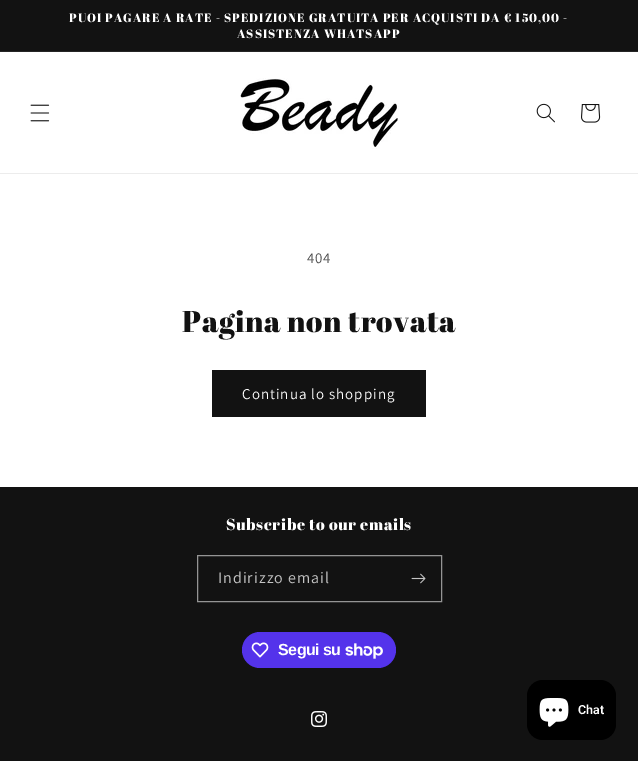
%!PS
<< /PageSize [638 761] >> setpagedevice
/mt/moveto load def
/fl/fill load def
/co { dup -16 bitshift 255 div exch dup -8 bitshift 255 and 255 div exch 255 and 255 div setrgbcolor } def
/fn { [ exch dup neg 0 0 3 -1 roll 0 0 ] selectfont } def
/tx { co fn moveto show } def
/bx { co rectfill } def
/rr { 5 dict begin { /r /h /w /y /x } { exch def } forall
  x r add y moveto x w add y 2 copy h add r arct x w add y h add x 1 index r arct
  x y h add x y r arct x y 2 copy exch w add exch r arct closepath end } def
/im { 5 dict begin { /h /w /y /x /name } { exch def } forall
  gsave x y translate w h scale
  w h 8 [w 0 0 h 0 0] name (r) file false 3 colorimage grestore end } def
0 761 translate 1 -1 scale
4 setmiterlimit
0 0 638 761 16#FFFFFF bx
0 0 638 51 16#121212 bx
0 51 638 1 16#252525 bx
0 173 638 1 16#ECECEC bx
(media/1.raw) 30 104 20 18 im
(media/2.raw) 240 78 159 71 im
(media/3.raw) 536 103 19 20 im
(media/4.raw) 581 104 20 19 im
212 370 214 47 16#121212 bx
0 487 638 274 16#121212 bx
16#949494 co
197.5 555.5 244 46 rectstroke
(media/5.raw) 411 573 15 11 im
16#5433EB co
242 632 154 36 18 rr fl
(media/6.raw) 251 642 18 16 im
(media/7.raw) 345 643 38 16 im
(media/8.raw) 311 711 16 16 im
16#000000 co
527 680 89 60 16 rr fl
(media/9.raw) 539 698 30 29 im
/AbrilFatface-Regular 12 fn
16#FFFFFF co
69 22 mt 1 0 (PUOI PAGARE A RATE - SPEDIZIONE GRATUITA PER ACQUISTI DA € 150,00 -) ashow
237 38 mt 1 0 (ASSISTENZA WHATSAPP) ashow
/Assistant-Regular 15 fn
16#4D4D4D co
307 263 mt .6 0 (404) ashow
/AbrilFatface-Regular 30 fn
16#121212 co
182 332 mt .6 0 (Pagina non trovata) ashow
/Assistant-Regular 15 fn
16#FFFFFF co
242 399 mt 1 0 (Continua lo shopping) ashow
/AbrilFatface-Regular 16 fn
226 530 mt .6 0 (Subscribe to our emails) ashow
/Assistant-Regular 16 fn
16#C4C4C4 co
218 583 mt 1 0 (Indirizzo email) ashow
/LiberationSans-Bold 16 fn
16#FFFFFF co
278 655 mt -.5 0 (Segui su) ashow
(Chat) 578 714 /Roboto-SemiBold 12.5 16#FFFFFF tx
showpage
